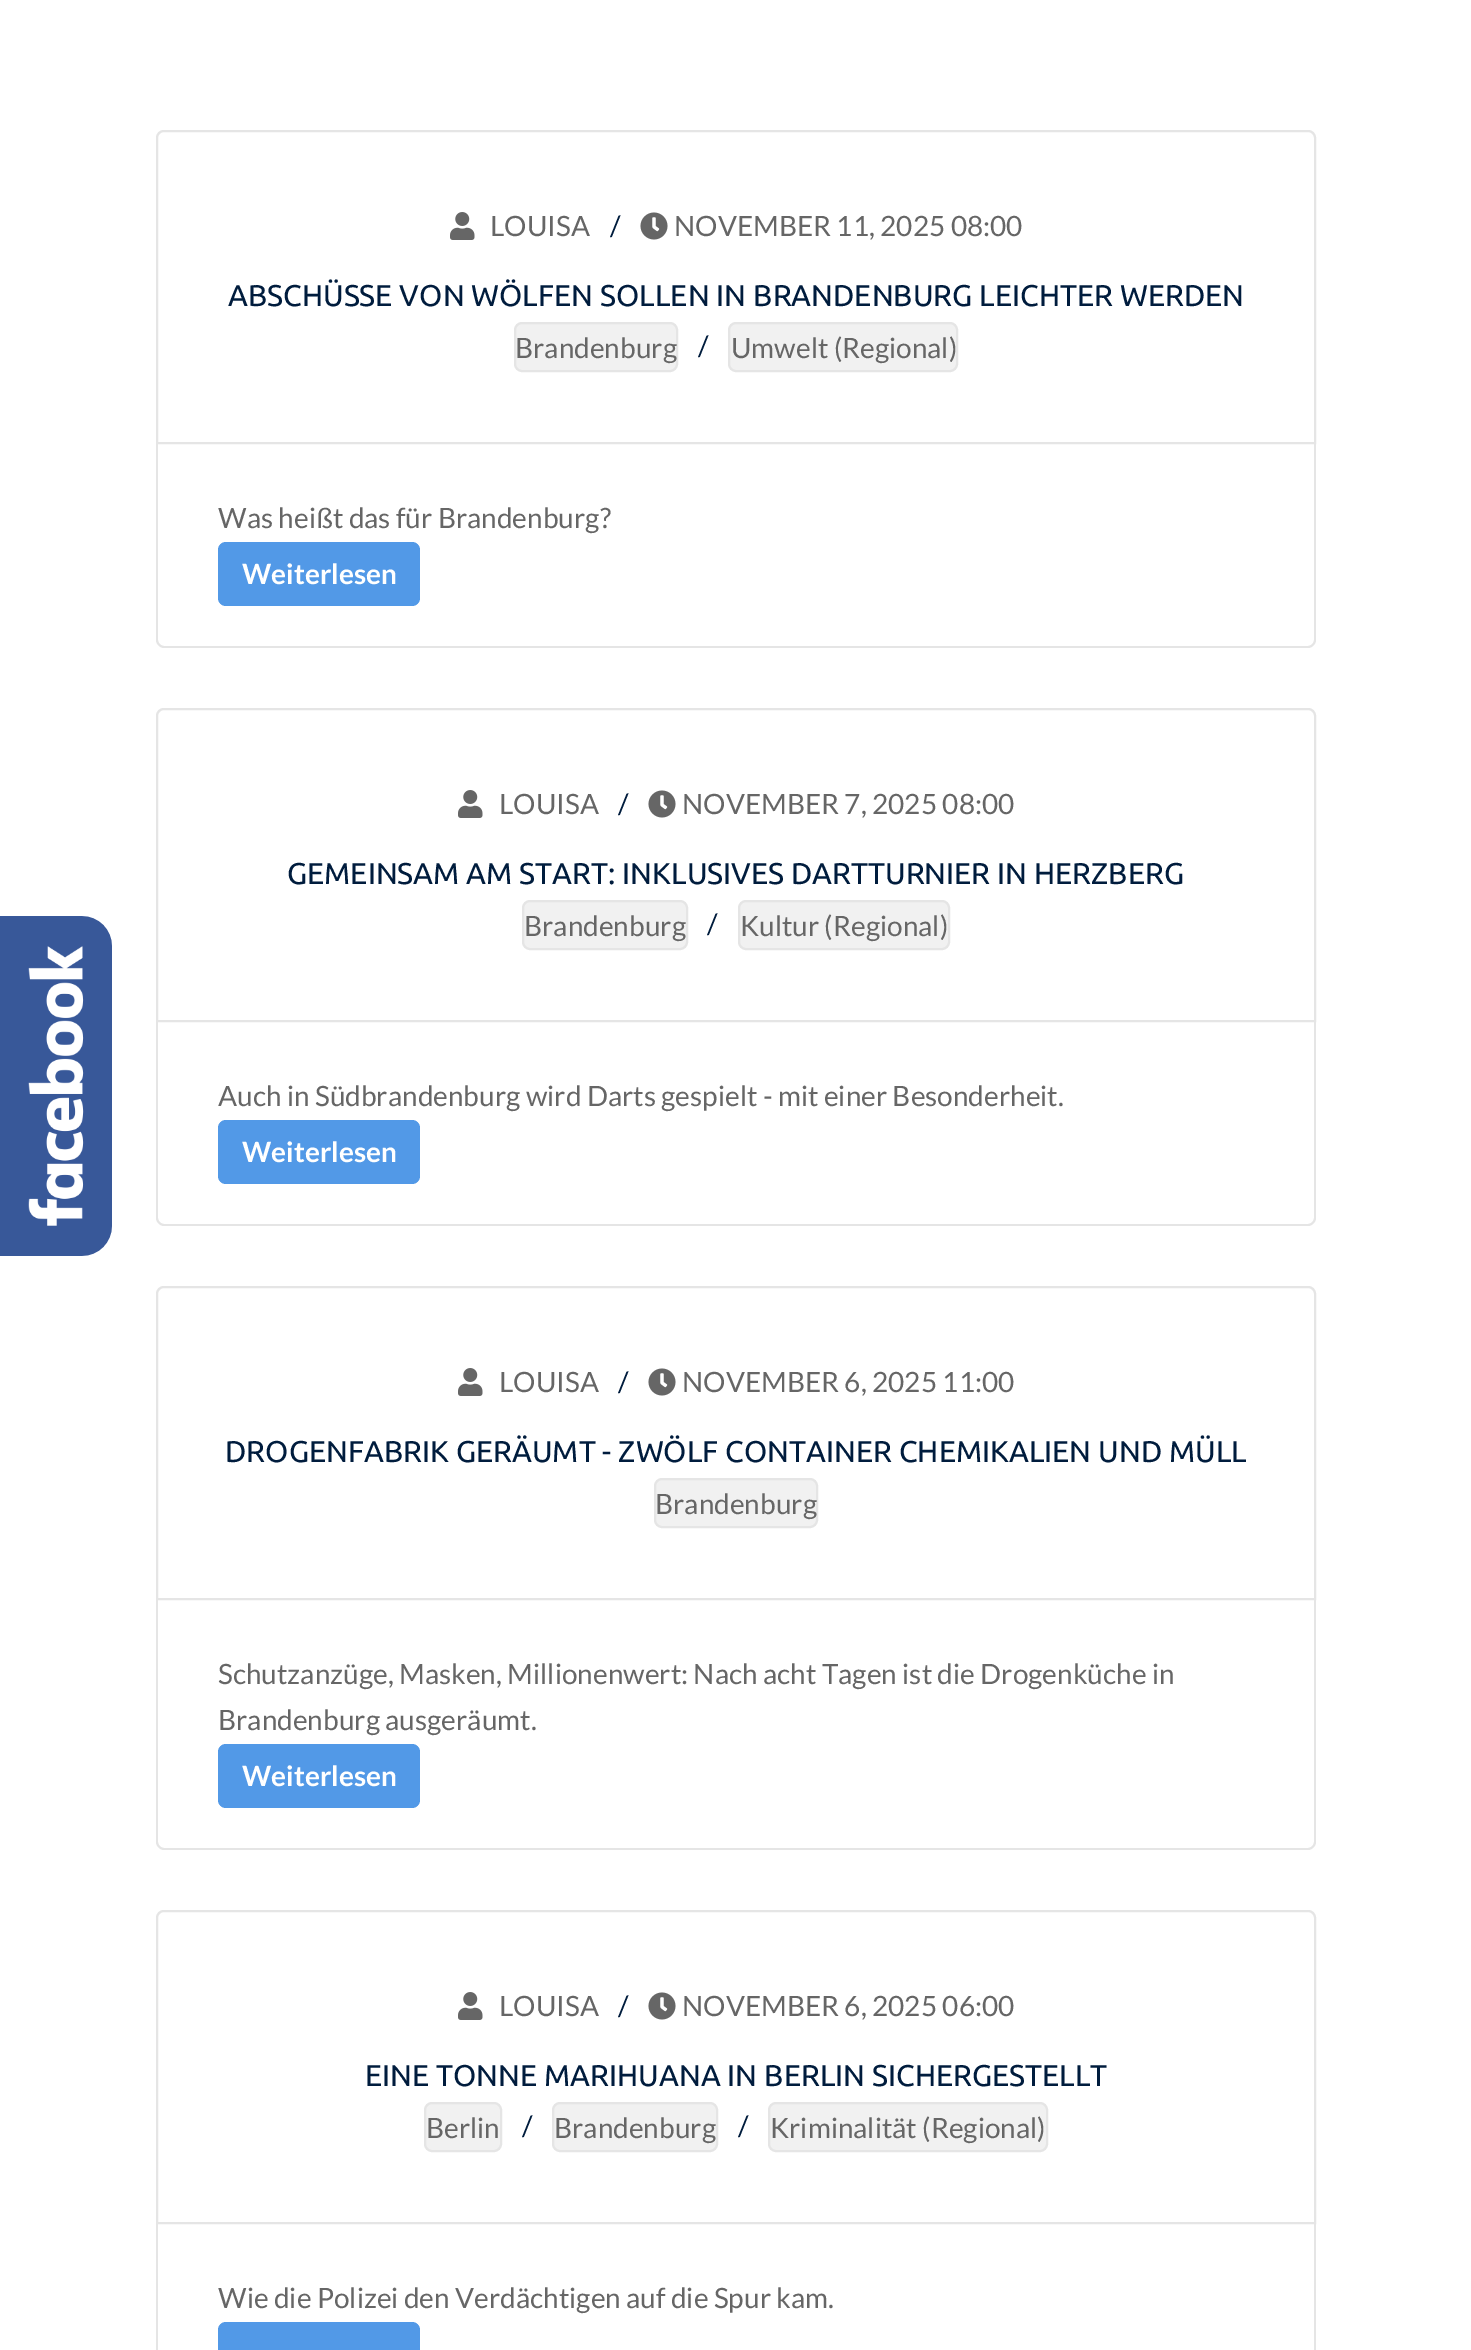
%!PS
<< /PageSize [1471 2350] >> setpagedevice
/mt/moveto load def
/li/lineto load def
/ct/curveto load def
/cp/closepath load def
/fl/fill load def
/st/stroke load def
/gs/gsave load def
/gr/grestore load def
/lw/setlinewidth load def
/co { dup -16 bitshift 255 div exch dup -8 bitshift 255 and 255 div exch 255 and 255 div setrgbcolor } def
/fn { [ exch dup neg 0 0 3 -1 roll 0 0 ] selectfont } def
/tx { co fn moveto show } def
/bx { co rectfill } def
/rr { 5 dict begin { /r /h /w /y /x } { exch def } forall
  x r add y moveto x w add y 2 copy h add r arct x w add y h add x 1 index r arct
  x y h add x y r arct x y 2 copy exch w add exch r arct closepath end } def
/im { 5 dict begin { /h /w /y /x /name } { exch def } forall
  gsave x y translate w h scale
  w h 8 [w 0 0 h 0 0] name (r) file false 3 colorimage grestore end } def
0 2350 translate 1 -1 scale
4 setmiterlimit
0 0 1471 2350 16#FFFFFF bx
(media/1.raw) 0 916 112 340 im
16#E5E5E5 co
2 lw
164 131 mt 1308 131 li 1312 131 1315 134 1315 138 ct 1315 443 li 157 443 li 157 138 li 157 134 160 131 164 131 ct cp st
(media/2.raw) 450 212 25 28 im
(media/3.raw) 640 212 28 28 im
16#F1F1F1 co
515 323 162 48 7 rr gs fl gr
16#E5E5E5 co
st
16#F1F1F1 co
729 323 228 48 7 rr gs fl gr
16#E5E5E5 co
st
156 444 mt 1316 444 li 1316 640 li 1316 644 1312 648 1308 648 ct 164 648 li 160 648 156 644 156 640 ct cp 158 444 mt 1314 444 li 1314 640 li 1314 643 1311 646 1308 646 ct 164 646 li 161 646 158 643 158 640 ct cp eofill
16#5299E7 co
218 542 202 64 8 rr fl
16#E5E5E5 co
164 709 mt 1308 709 li 1312 709 1315 712 1315 716 ct 1315 1021 li 157 1021 li 157 716 li 157 712 160 709 164 709 ct cp st
(media/2.raw) 458 790 25 28 im
(media/3.raw) 648 790 28 28 im
16#F1F1F1 co
523 901 164 48 7 rr gs fl gr
16#E5E5E5 co
st
16#F1F1F1 co
739 901 210 48 7 rr gs fl gr
16#E5E5E5 co
st
156 1022 mt 1316 1022 li 1316 1218 li 1316 1222 1312 1226 1308 1226 ct 164 1226 li 160 1226 156 1222 156 1218 ct cp 158 1022 mt 1314 1022 li 1314 1218 li 1314 1221 1311 1224 1308 1224 ct 164 1224 li 161 1224 158 1221 158 1218 ct cp eofill
16#5299E7 co
218 1120 202 64 8 rr fl
16#E5E5E5 co
164 1287 mt 1308 1287 li 1312 1287 1315 1290 1315 1294 ct 1315 1599 li 157 1599 li 157 1294 li 157 1290 160 1287 164 1287 ct cp st
(media/2.raw) 458 1368 25 28 im
(media/3.raw) 648 1368 28 28 im
16#F1F1F1 co
655 1479 162 48 7 rr gs fl gr
16#E5E5E5 co
st
156 1600 mt 1316 1600 li 1316 1842 li 1316 1846 1312 1850 1308 1850 ct 164 1850 li 160 1850 156 1846 156 1842 ct cp 158 1600 mt 1314 1600 li 1314 1842 li 1314 1845 1311 1848 1308 1848 ct 164 1848 li 161 1848 158 1845 158 1842 ct cp eofill
16#5299E7 co
218 1744 202 64 8 rr fl
16#E5E5E5 co
164 1911 mt 1308 1911 li 1312 1911 1315 1914 1315 1918 ct 1315 2223 li 157 2223 li 157 1918 li 157 1914 160 1911 164 1911 ct cp st
(media/2.raw) 458 1992 25 28 im
(media/3.raw) 648 1992 28 28 im
16#F1F1F1 co
425 2103 76 48 7 rr gs fl gr
16#E5E5E5 co
st
16#F1F1F1 co
553 2103 164 48 7 rr gs fl gr
16#E5E5E5 co
st
16#F1F1F1 co
769 2103 278 48 7 rr gs fl gr
16#E5E5E5 co
st
156 2224 mt 1316 2224 li 1316 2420 li 1316 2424 1312 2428 1308 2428 ct 164 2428 li 160 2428 156 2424 156 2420 ct cp 158 2224 mt 1314 2224 li 1314 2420 li 1314 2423 1311 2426 1308 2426 ct 164 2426 li 161 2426 158 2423 158 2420 ct cp eofill
16#5299E7 co
218 2322 202 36 8 rr fl
(LOUISA) 490 236 /Lato-Regular 28 16#666666 tx
(/) 610 236 /Lato-Regular 28 16#001C3D tx
(NOVEMBER 11, 2025 08:00) 674 236 /Lato-Regular 28 16#666666 tx
(ABSCHÜSSE VON WÖLFEN SOLLEN IN BRANDENBURG LEICHTER WERDEN) 228 306 /Ubuntu-Regular 30 16#001C3D tx
(Brandenburg) 515 358 /Lato-Regular 28 16#666666 tx
(/) 698 356 /Lato-Regular 28 16#001C3D tx
(Umwelt \(Regional\)) 731 358 /Lato-Regular 28 16#666666 tx
(Was heißt das für Brandenburg?) 218 528 /Lato-Regular 28 16#666666 tx
(Weiterlesen) 242 584 /Lato-Bold 28 16#FFFFFF tx
(LOUISA) 499 814 /Lato-Regular 28 16#666666 tx
(/) 618 814 /Lato-Regular 28 16#001C3D tx
(NOVEMBER 7, 2025 08:00) 682 814 /Lato-Regular 28 16#666666 tx
(GEMEINSAM AM START: INKLUSIVES DARTTURNIER IN HERZBERG) 287 884 /Ubuntu-Regular 30 16#001C3D tx
(Brandenburg) 524 936 /Lato-Regular 28 16#666666 tx
(/) 707 934 /Lato-Regular 28 16#001C3D tx
(Kultur \(Regional\)) 740 936 /Lato-Regular 28 16#666666 tx
(Auch in Südbrandenburg wird Darts gespielt - mit einer Besonderheit.) 218 1106 /Lato-Regular 28 16#666666 tx
(Weiterlesen) 242 1162 /Lato-Bold 28 16#FFFFFF tx
(LOUISA) 499 1392 /Lato-Regular 28 16#666666 tx
(/) 618 1392 /Lato-Regular 28 16#001C3D tx
(NOVEMBER 6, 2025 11:00) 682 1392 /Lato-Regular 28 16#666666 tx
(DROGENFABRIK GERÄUMT - ZWÖLF CONTAINER CHEMIKALIEN UND MÜLL) 225 1462 /Ubuntu-Regular 30 16#001C3D tx
(Brandenburg) 655 1514 /Lato-Regular 28 16#666666 tx
(Schutzanzüge, Masken, Millionenwert: Nach acht Tagen ist die Drogenküche in) 218 1684 /Lato-Regular 28 16#666666 tx
(Brandenburg ausgeräumt.) 218 1730 /Lato-Regular 28 16#666666 tx
(Weiterlesen) 242 1786 /Lato-Bold 28 16#FFFFFF tx
(LOUISA) 499 2016 /Lato-Regular 28 16#666666 tx
(/) 618 2016 /Lato-Regular 28 16#001C3D tx
(NOVEMBER 6, 2025 06:00) 682 2016 /Lato-Regular 28 16#666666 tx
(EINE TONNE MARIHUANA IN BERLIN SICHERGESTELLT) 365 2086 /Ubuntu-Regular 30 16#001C3D tx
(Berlin) 426 2138 /Lato-Regular 28 16#666666 tx
(/) 522 2136 /Lato-Regular 28 16#001C3D tx
(Brandenburg) 554 2138 /Lato-Regular 28 16#666666 tx
(/) 738 2136 /Lato-Regular 28 16#001C3D tx
(Kriminalität \(Regional\)) 770 2138 /Lato-Regular 28 16#666666 tx
(Wie die Polizei den Verdächtigen auf die Spur kam.) 218 2308 /Lato-Regular 28 16#666666 tx
showpage
